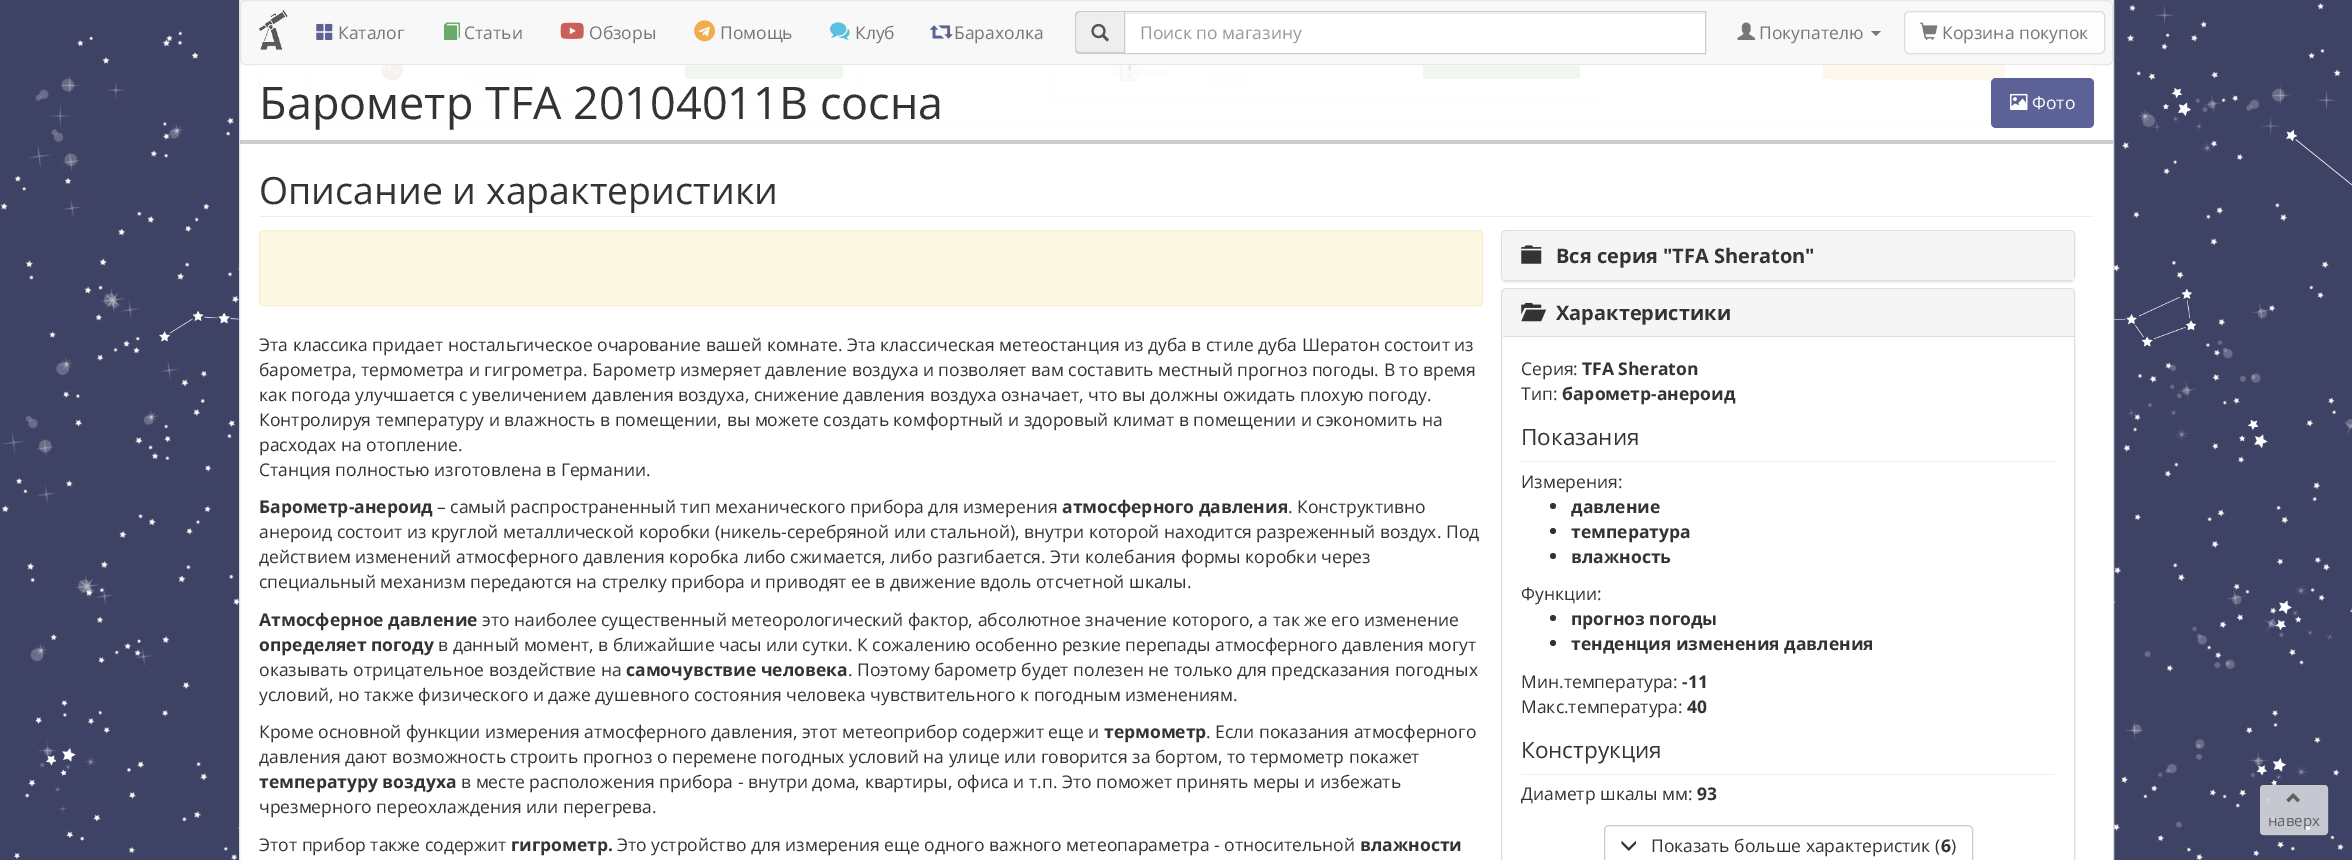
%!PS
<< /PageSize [2352 860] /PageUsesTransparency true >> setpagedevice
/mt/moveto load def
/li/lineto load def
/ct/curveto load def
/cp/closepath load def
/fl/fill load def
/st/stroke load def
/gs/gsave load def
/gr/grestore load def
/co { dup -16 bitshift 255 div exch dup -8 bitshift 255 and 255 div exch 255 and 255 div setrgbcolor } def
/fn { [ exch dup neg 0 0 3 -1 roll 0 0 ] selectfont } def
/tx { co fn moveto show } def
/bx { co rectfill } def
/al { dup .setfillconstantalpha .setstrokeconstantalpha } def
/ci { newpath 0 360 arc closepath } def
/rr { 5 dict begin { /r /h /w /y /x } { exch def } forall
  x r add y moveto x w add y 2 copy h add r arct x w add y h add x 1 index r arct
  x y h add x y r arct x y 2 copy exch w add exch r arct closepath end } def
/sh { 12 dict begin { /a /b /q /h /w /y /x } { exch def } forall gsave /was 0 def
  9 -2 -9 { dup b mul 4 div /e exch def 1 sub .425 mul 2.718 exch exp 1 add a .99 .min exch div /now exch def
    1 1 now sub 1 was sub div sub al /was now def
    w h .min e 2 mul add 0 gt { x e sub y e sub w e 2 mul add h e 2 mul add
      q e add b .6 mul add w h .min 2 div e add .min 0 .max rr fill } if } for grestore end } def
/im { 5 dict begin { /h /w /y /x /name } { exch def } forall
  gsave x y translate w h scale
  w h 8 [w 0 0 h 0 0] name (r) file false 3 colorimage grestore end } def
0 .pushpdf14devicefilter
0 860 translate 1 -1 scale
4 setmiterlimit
0 0 2352 860 16#FFFFFF bx
(media/1.raw) 0 0 2352 860 im
239.5 -.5 mt 2113.5 -.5 li 2113.5 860.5 li 239.5 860.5 li cp gs fl gr
16#DDDDDD co
st
16#000000 co
259 -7 1835 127 5 .5 .05 sh
16#FFFFFF co
259.5 -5.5 1834 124 4.5 rr gs fl gr
16#FAEBCC co
st
16#DDDDDD co
310.5 -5.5 552 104 4.5 rr st
16#F9F2F4 co
468 58 71 27 5 rr fl
16#69AA69 co
685 54 158 25 4 rr fl
16#DDDDDD co
1048.5 -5.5 551 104 4.5 rr st
16#F9F2F4 co
1205 58 46 27 5 rr fl
16#69AA69 co
1423 54 157 25 4 rr fl
16#F0AD4E co
1823.5 36.5 181 42 4.5 rr gs fl gr
16#EEA236 co
st
16#F8F8F8 co
240.5 .5 1872 64 4.5 rr gs fl gr
16#E7E7E7 co
st
(media/2.raw) 259 10 29 40 im
(media/3.raw) 316 23 17 17 im
(media/4.raw) 443 22 17 18 im
(media/5.raw) 560 22 24 17 im
(media/6.raw) 694 20 22 22 im
(media/7.raw) 830 22 20 18 im
(media/8.raw) 930 25 23 14 im
16#EEEEEE co
1080 11 mt 1124 11 li 1124 54 li 1080 54 li 1077 54 1075 52 1075 49 ct 1075 16 li 1075 13 1077 11 1080 11 ct cp fl
16#CCCCCC co
1080 11 mt 1124 11 li 1124 54 li 1080 54 li 1077 54 1075 52 1075 49 ct 1075 16 li 1075 13 1077 11 1080 11 ct cp 1080 12 mt 1124 12 li 1124 52 li 1080 52 li 1078 52 1076 51 1076 49 ct 1076 16 li 1076 14 1078 12 1080 12 ct cp eofill
(media/9.raw) 1091 23 18 19 im
1125 12 580 41 16#FFFFFF bx
1125 13 580 1 16#ECECEC bx
16#CCCCCC co
1124.5 11.5 581 42 rectstroke
(media/10.raw) 1737 22 18 18 im
16#777777 co
1871 31 mt 1881 31 li 1876 36 li cp fl
16#FDFDFD co
1904.5 11.5 200 42 4.5 rr gs fl gr
16#DBDBDB co
st
(media/11.raw) 1920 22 18 18 im
(media/13.raw) 360 65 74 17 im
(media/14.raw) 1111 65 57 17 im
0.9 al
259 65 1835 55 16#FFFFFF bx
1 al
240 140 1873 4 16#CCCCCC bx
16#5C6296 co
1991 78 103 50 5 rr fl
(media/12.raw) 2010 93 18 17 im
259 216 1835 1 16#EEEEEE bx
16#FCF8E3 co
259.5 230.5 1223 75 4.5 rr gs fl gr
16#FAEBCC co
st
16#000000 co
1501 231 574 52 5 .5 .05 sh
16#FFFFFF co
1501.5 230.5 573 50 4.5 rr gs fl gr
16#DDDDDD co
st
16#F5F5F5 co
1507 231 mt 2070 231 li 2072 231 2074 233 2074 235 ct 2074 280 li 1503 280 li 1503 235 li 1503 233 1505 231 1507 231 ct cp fl
(media/15.raw) 1521 245 21 19 im
16#DDDDDD co
1501.5 288.5 573 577 4.5 rr st
16#F5F5F5 co
1507 289 mt 2070 289 li 2072 289 2074 291 2074 293 ct 2074 336 li 1503 336 li 1503 293 li 1503 291 1505 289 1507 289 ct cp fl
(media/16.raw) 1521 302 26 20 im
1503 336 571 1 16#DDDDDD bx
1521 461 534 1 16#EEEEEE bx
16#333333 co
1553 506 3 ci fl
1553 531 3 ci fl
1553 556 3 ci fl
1553 618 3 ci fl
1553 643 3 ci fl
1521 774 534 1 16#EEEEEE bx
16#CCCCCC co
1604.5 825.5 368 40 4.5 rr st
(media/17.raw) 1621 840 15 11 im
0.7 al
16#FFFFFF co
2260 785 68 50 4 rr fl
16#CCCCCC co
2260.5 785.5 67 49 3.5 rr st
1 al
(media/18.raw) 2286 793 14 10 im
(Каталог) 338 39 /OpenSans-Regular 17.5 16#777777 tx
(Статьи) 464 39 /OpenSans-Regular 17.5 16#777777 tx
(Обзоры) 589 39 /OpenSans-Regular 17.5 16#777777 tx
(Помощь) 720 39 /OpenSans-Regular 17.5 16#777777 tx
(Клуб) 855 39 /OpenSans-Regular 17.5 16#777777 tx
(Барахолка) 954 39 /OpenSans-Regular 17.5 16#777777 tx
(Поиск по магазину) 1140 39 /OpenSans-Regular 17.5 16#999999 tx
(Покупателю) 1759 39 /OpenSans-Regular 17.5 16#777777 tx
(Корзина покупок) 1942 39 /OpenSans-Regular 17.5 16#777777 tx
(Барометр TFA 20104011B сосна) 259 119 /OpenSans-Regular 45 16#333333 tx
(Фото) 2032 109 /OpenSans-Regular 17.5 16#FFFFFF tx
(Описание и характеристики) 259 204 /OpenSans-Regular 37.5 16#333333 tx
(Эта классика придает ностальгическое очарование вашей комнате. Эта классическая метеостанция из дуба в стиле дуба Шератон состоит из) 259 351 /OpenSans-Regular 17.5 16#333333 tx
(барометра, термометра и гигрометра. Барометр измеряет давление воздуха и позволяет вам составить местный прогноз погоды. В то время) 259 376 /OpenSans-Regular 17.5 16#333333 tx
(как погода улучшается с увеличением давления воздуха, снижение давления воздуха означает, что вы должны ожидать плохую погоду.) 259 401 /OpenSans-Regular 17.5 16#333333 tx
(Контролируя температуру и влажность в помещении, вы можете создать комфортный и здоровый климат в помещении и сэкономить на) 259 426 /OpenSans-Regular 17.5 16#333333 tx
(расходах на отопление.) 259 451 /OpenSans-Regular 17.5 16#333333 tx
(Станция полностью изготовлена в Германии.) 259 476 /OpenSans-Regular 17.5 16#333333 tx
(Барометр-анероид) 259 513 /OpenSans-Bold 17.5 16#333333 tx
(– самый распространенный тип механического прибора для измерения) 437 513 /OpenSans-Regular 17.5 16#333333 tx
(атмосферного давления) 1062 513 /OpenSans-Bold 17.5 16#333333 tx
(. Конструктивно) 1288 513 /OpenSans-Regular 17.5 16#333333 tx
(анероид состоит из круглой металлической коробки \(никель-серебряной или стальной\), внутри которой находится разреженный воздух. Под) 259 538 /OpenSans-Regular 17.5 16#333333 tx
(действием изменений атмосферного давления коробка либо сжимается, либо разгибается. Эти колебания формы коробки через) 259 563 /OpenSans-Regular 17.5 16#333333 tx
(специальный механизм передаются на стрелку прибора и приводят ее в движение вдоль отсчетной шкалы.) 259 588 /OpenSans-Regular 17.5 16#333333 tx
(Атмосферное давление) 259 626 /OpenSans-Bold 17.5 16#333333 tx
(это наиболее существенный метеорологический фактор, абсолютное значение которого, а так же его изменение) 482 626 /OpenSans-Regular 17.5 16#333333 tx
(определяет погоду) 259 651 /OpenSans-Bold 17.5 16#333333 tx
(в данный момент, в ближайшие часы или сутки. К сожалению особенно резкие перепады атмосферного давления могут) 438 651 /OpenSans-Regular 17.5 16#333333 tx
(оказывать отрицательное воздействие на) 259 676 /OpenSans-Regular 17.5 16#333333 tx
(самочувствие человека) 626 676 /OpenSans-Bold 17.5 16#333333 tx
(. Поэтому барометр будет полезен не только для предсказания погодных) 848 676 /OpenSans-Regular 17.5 16#333333 tx
(условий, но также физического и даже душевного состояния человека чувствительного к погодным изменениям.) 259 701 /OpenSans-Regular 17.5 16#333333 tx
(Кроме основной функции измерения атмосферного давления, этот метеоприбор содержит еще и) 259 738 /OpenSans-Regular 17.5 16#333333 tx
(термометр) 1104 738 /OpenSans-Bold 17.5 16#333333 tx
(. Если показания атмосферного) 1206 738 /OpenSans-Regular 17.5 16#333333 tx
(давления дают возможность строить прогноз о перемене погодных условий на улице или говорится за бортом, то термометр покажет) 259 763 /OpenSans-Regular 17.5 16#333333 tx
(температуру воздуха) 259 788 /OpenSans-Bold 17.5 16#333333 tx
(в месте расположения прибора - внутри дома, квартиры, офиса и т.п. Это поможет принять меры и избежать) 461 788 /OpenSans-Regular 17.5 16#333333 tx
(чрезмерного переохлаждения или перегрева.) 259 813 /OpenSans-Regular 17.5 16#333333 tx
(Этот прибор также содержит) 259 851 /OpenSans-Regular 17.5 16#333333 tx
(гигрометр.) 511 851 /OpenSans-Bold 17.5 16#333333 tx
(Это устройство для измерения еще одного важного метеопараметра - относительной) 617 851 /OpenSans-Regular 17.5 16#333333 tx
(влажности) 1360 851 /OpenSans-Bold 17.5 16#333333 tx
(Вся серия "TFA Sheraton") 1556 263 /OpenSans-Bold 20 16#333333 tx
(Характеристики) 1556 320 /OpenSans-Bold 20 16#333333 tx
(Серия:) 1521 375 /OpenSans-Regular 17.5 16#333333 tx
(TFA Sheraton) 1582 375 /OpenSans-Bold 17.5 16#333333 tx
(Тип:) 1521 400 /OpenSans-Regular 17.5 16#333333 tx
(барометр-анероид) 1562 400 /OpenSans-Bold 17.5 16#333333 tx
(Показания) 1521 445 /OpenSans-Regular 22.5 16#333333 tx
(Измерения:) 1521 488 /OpenSans-Regular 17.5 16#333333 tx
(давление) 1571 513 /OpenSans-Bold 17.5 16#333333 tx
(температура) 1571 538 /OpenSans-Bold 17.5 16#333333 tx
(влажность) 1571 563 /OpenSans-Bold 17.5 16#333333 tx
(Функции:) 1521 600 /OpenSans-Regular 17.5 16#333333 tx
(прогноз погоды) 1571 625 /OpenSans-Bold 17.5 16#333333 tx
(тенденция изменения давления) 1571 650 /OpenSans-Bold 17.5 16#333333 tx
(Мин.температура:) 1521 688 /OpenSans-Regular 17.5 16#333333 tx
(-11) 1682 688 /OpenSans-Bold 17.5 16#333333 tx
(Макс.температура:) 1521 713 /OpenSans-Regular 17.5 16#333333 tx
(40) 1687 713 /OpenSans-Bold 17.5 16#333333 tx
(Конструкция) 1521 758 /OpenSans-Regular 22.5 16#333333 tx
(Диаметр шкалы мм:) 1521 800 /OpenSans-Regular 17.5 16#333333 tx
(93) 1697 800 /OpenSans-Bold 17.5 16#333333 tx
(Показать больше характеристик \() 1651 852 /OpenSans-Regular 17.5 16#333333 tx
(6) 1941 852 /OpenSans-Bold 17.5 16#333333 tx
(\)) 1951 852 /OpenSans-Regular 17.5 16#333333 tx
(наверх) 2268 826 /OpenSans-Regular 15 16#5F6063 tx
.poppdf14devicefilter showpage
